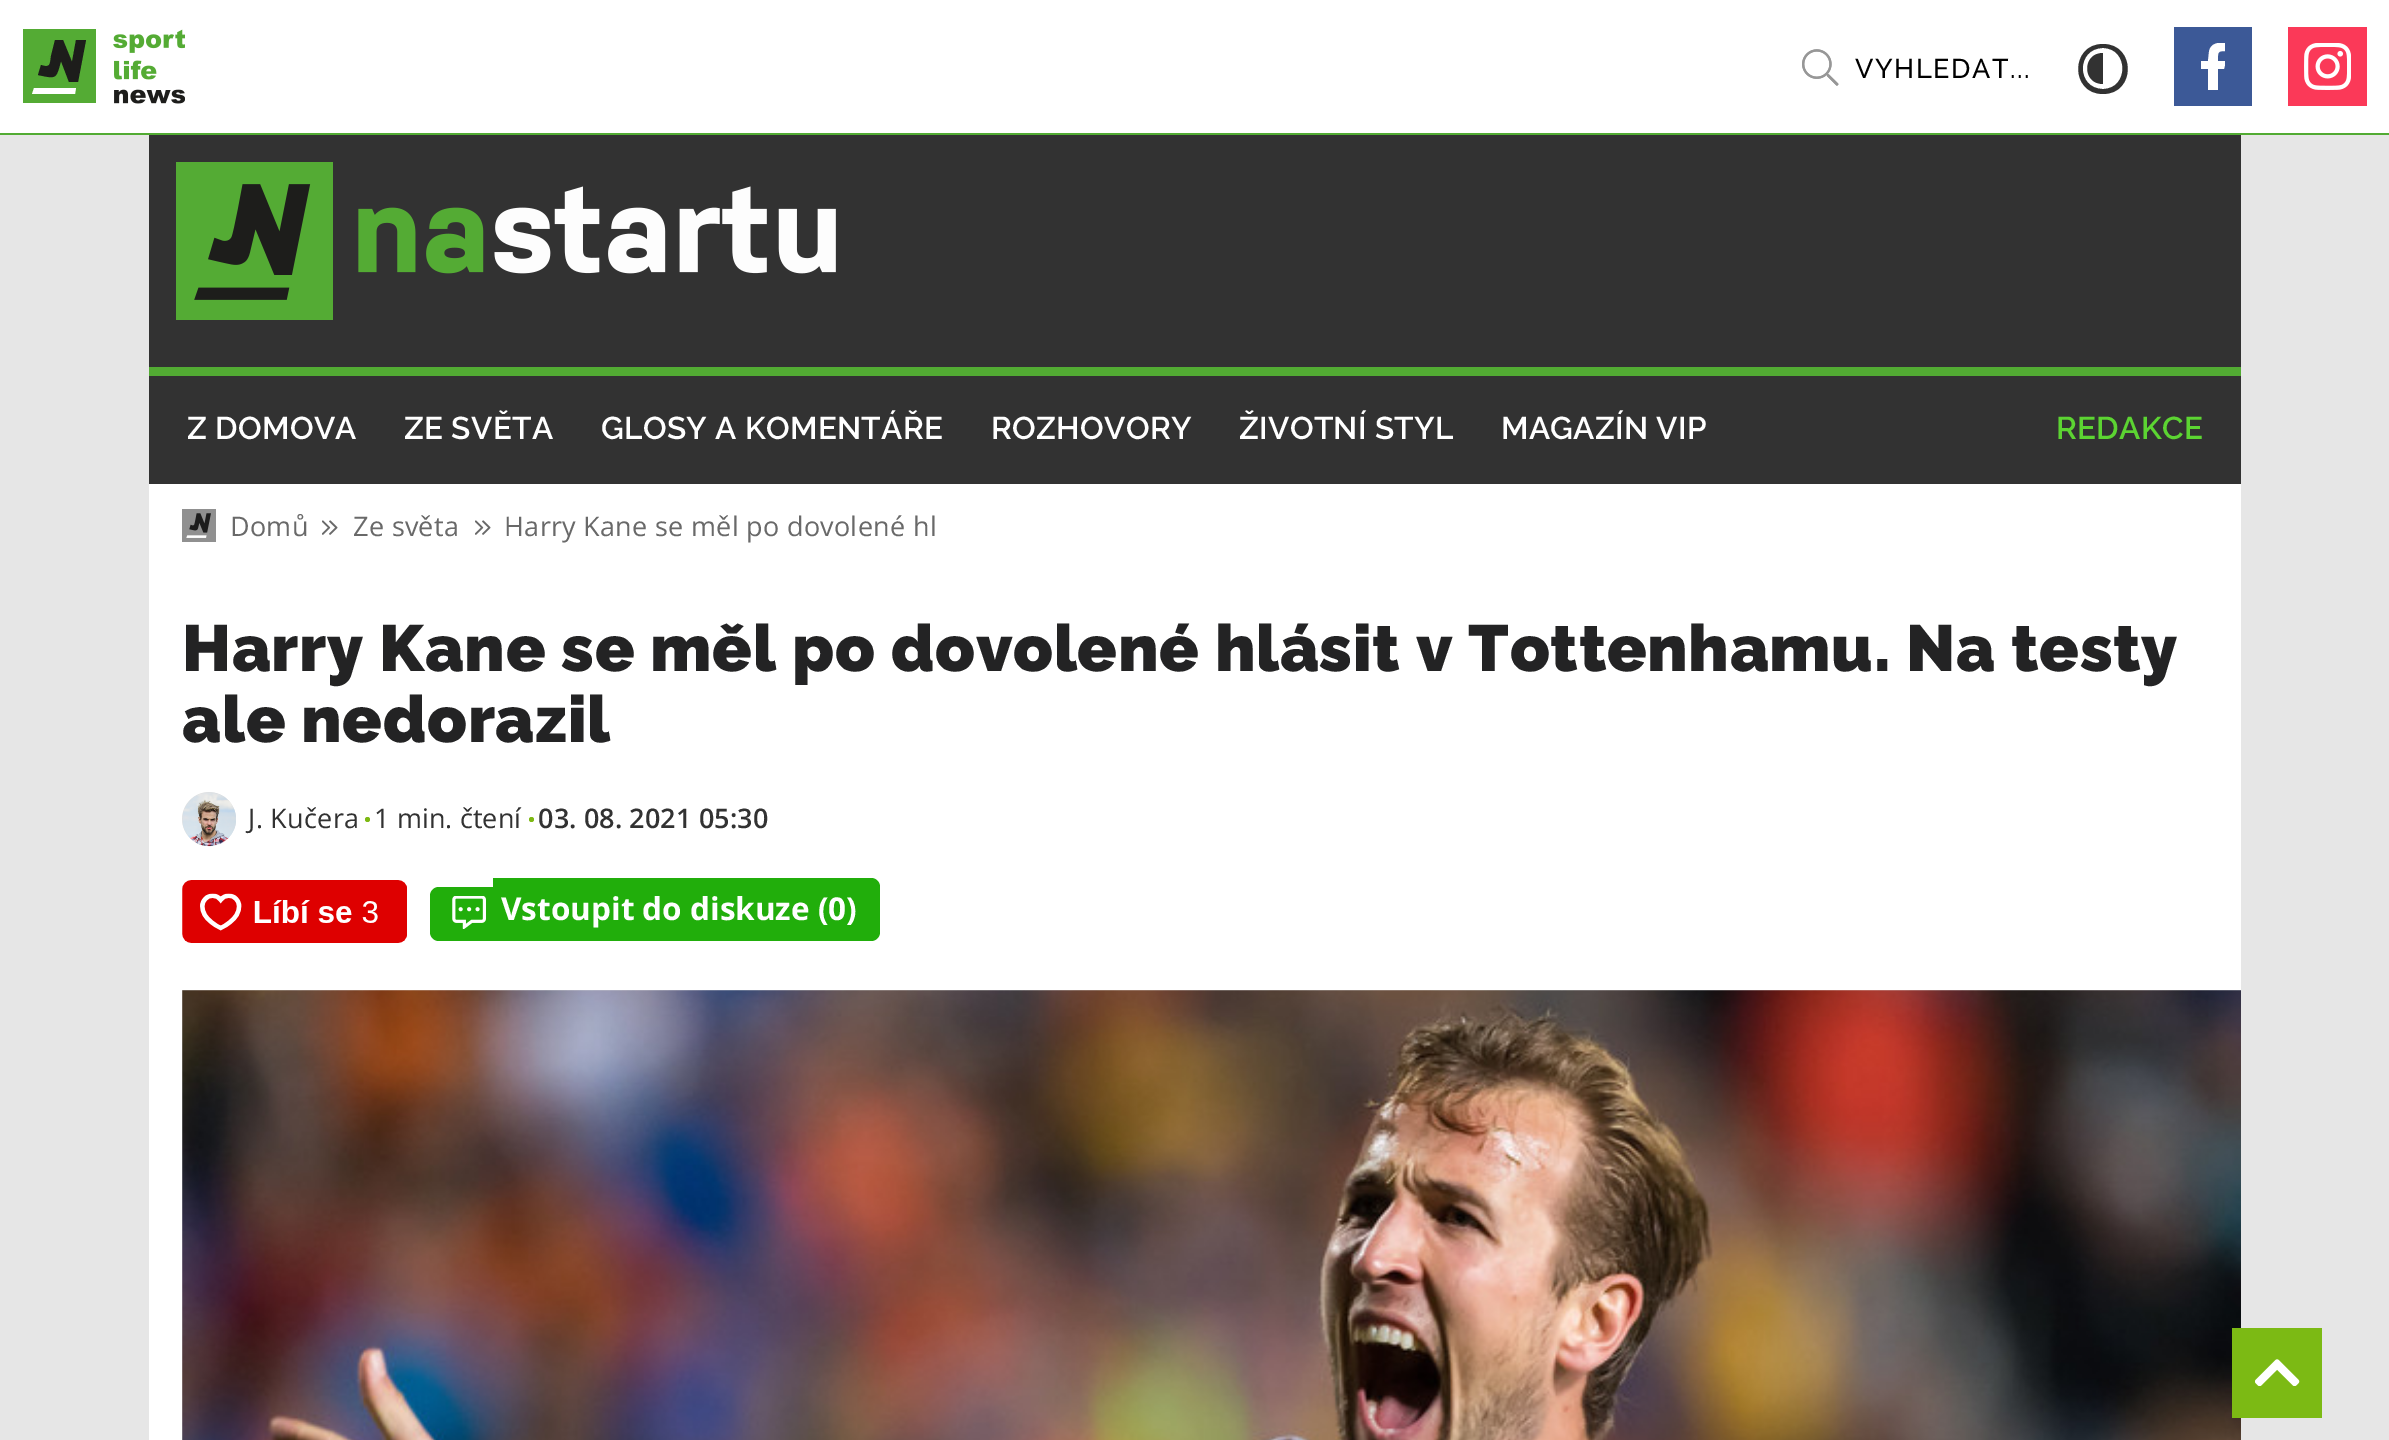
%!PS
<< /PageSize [2389 1440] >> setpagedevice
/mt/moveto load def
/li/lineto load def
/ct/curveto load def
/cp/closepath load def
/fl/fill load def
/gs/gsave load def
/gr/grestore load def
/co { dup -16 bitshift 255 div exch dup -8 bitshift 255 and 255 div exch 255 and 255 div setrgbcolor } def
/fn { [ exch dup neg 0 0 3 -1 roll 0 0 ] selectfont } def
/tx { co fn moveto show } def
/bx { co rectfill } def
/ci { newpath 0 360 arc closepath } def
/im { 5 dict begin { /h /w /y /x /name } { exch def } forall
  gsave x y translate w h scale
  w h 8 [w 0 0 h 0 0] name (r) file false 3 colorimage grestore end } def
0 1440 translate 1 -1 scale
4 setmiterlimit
0 0 2389 1440 16#E6E6E6 bx
0 0 2389 133 16#FFFFFF bx
0 133 2389 2 16#52AB33 bx
23 29 73 74 16#54AB34 bx
16#FFFFFF co
76 88 mt 34 88 li 32 94 li 75 94 li cp fl
16#1D1D1B co
55 40 mt 63 40 li 72 62 li 76 40 li 86 40 li 78 82 li 69 82 li 61 61 li 56 79 57 79 38 75 ct 41 65 li 50 68 50 65 51 56 ct cp fl
(media/1.raw) 113 29 72 75 im
(media/2.raw) 1802 49 37 37 im
16#323232 co
2103 48 mt 2129 48 2129 89 2103 89 ct 2076 89 2076 48 2103 48 ct 2103 44 mt 2070 44 2070 94 2103 94 ct 2136 94 2136 44 2103 44 ct cp 2103 53 mt 2082 53 2082 84 2103 84 ct cp fl
2174 27 78 79 16#3C5997 bx
gs
2201 43 24 47 rectclip
16#FFFFFF co
2224 69 mt 2226 61 li 2218 61 li 2218 52 2217 51 2226 51 ct 2226 43 li 2219 42 2210 43 2209 52 ct 2208 61 li 2201 61 li 2201 69 li 2208 69 li 2208 90 li 2218 90 li 2218 69 li cp fl
gr
2288 27 79 79 16#FB3958 bx
(media/3.raw) 2304 43 47 47 im
149 135 2092 349 16#323232 bx
149 367 2092 9 16#52AB33 bx
(media/4.raw) 176 162 660 158 im
149 484 2092 362 16#FFFFFF bx
(media/5.raw) 182 509 34 33 im
(media/6.raw) 322 520 16 15 im
(media/6.raw) 475 520 16 15 im
16#E0E0E0 co
209 819 27 ci fl
149 846 2092 594 16#FFFFFF bx
(media/7.raw) 182 792 54 55 im
16#7DB913 co
367.5 819.5 2.5 ci fl
531.5 819.5 2.5 ci fl
(media/8.raw) 182 880 225 63 im
16#21AE0B co
439 887 mt 493 887 li 493 941 li 439 941 li 434 941 430 937 430 932 ct 430 896 li 430 891 434 887 439 887 ct cp fl
(media/9.raw) 452 896 34 33 im
493 878 353 63 16#21AE0B bx
846 878 mt 871 878 li 876 878 880 882 880 887 ct 880 932 li 880 937 876 941 871 941 ct 846 941 li cp fl
182 990 2059 450 16#E0E0E0 bx
(media/10.raw) 182 990 2059 450 im
2232 1328 90 90 16#7CBA14 bx
(media/11.raw) 2255 1359 45 27 im
/Raleway-Medium 27 fn
16#000000 co
1855 78 mt 1.6 0 (VYHLEDAT...) ashow
/Raleway-SemiBold 31.5 fn
16#FFFFFF co
187 439 mt .3 0 (Z DOMOVA) ashow
404 439 mt .3 0 (ZE SVĚTA) ashow
601 439 mt .3 0 (GLOSY A KOMENTÁŘE) ashow
991 439 mt .3 0 (ROZHOVORY) ashow
1239 439 mt .3 0 (ŽIVOTNÍ STYL) ashow
1501 439 mt .3 0 (MAGAZÍN VIP) ashow
16#5CD432 co
2056 439 mt .3 0 (REDAKCE) ashow
/OpenSans-Regular 27 fn
16#696969 co
230 536 mt .3 0 (Domů) ashow
353 536 mt .3 0 (Ze světa) ashow
504 536 mt .3 0 (Harry Kane se měl po dovolené hl) ashow
/Raleway-Black 65.25 fn
16#232324 co
182 671 mt .65 0 (Harry Kane se měl po dovolené hlásit v Tottenhamu. Na testy) ashow
182 742 mt .65 0 (ale nedorazil) ashow
/OpenSans-Regular 27 fn
16#323232 co
248 828 mt .3 0 (J. Kučera) ashow
374 828 mt .1 0 (1 min. čtení) ashow
/OpenSans-SemiBold 27 fn
538 828 mt .1 0 (03. 08. 2021 05:30) ashow
(Vstoupit do diskuze \(0\)) 501 920 /OpenSans-Bold 31.5 16#FFFFFF tx
showpage
